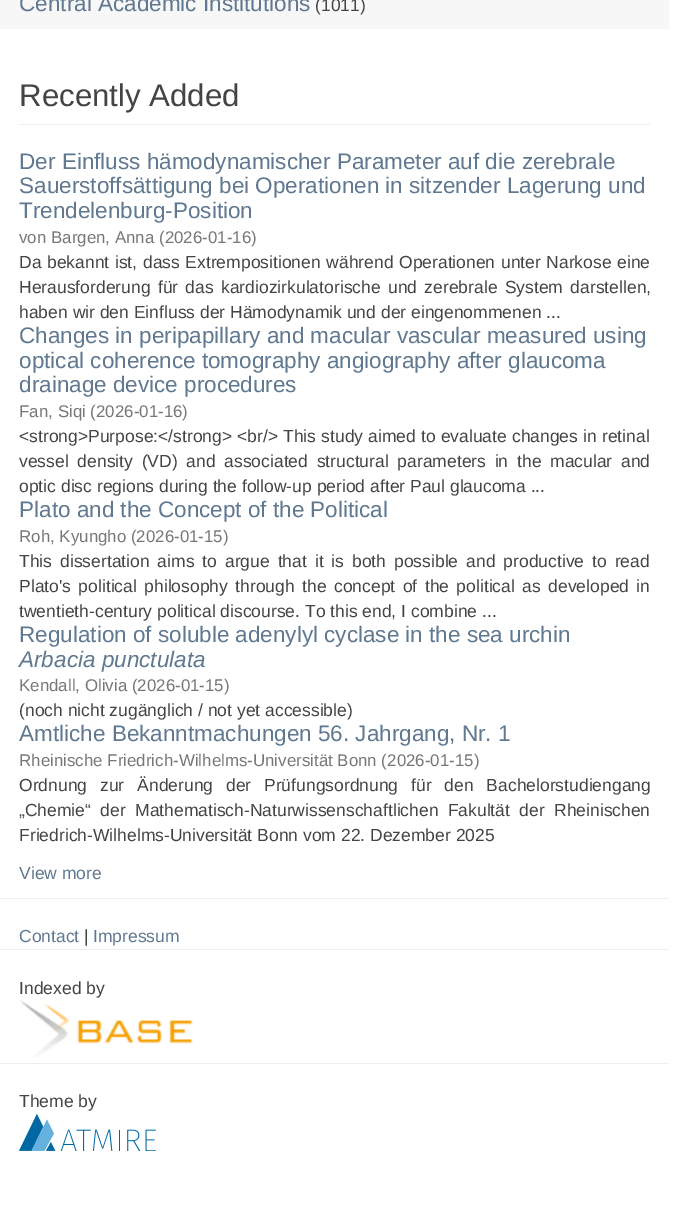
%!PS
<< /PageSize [685 1213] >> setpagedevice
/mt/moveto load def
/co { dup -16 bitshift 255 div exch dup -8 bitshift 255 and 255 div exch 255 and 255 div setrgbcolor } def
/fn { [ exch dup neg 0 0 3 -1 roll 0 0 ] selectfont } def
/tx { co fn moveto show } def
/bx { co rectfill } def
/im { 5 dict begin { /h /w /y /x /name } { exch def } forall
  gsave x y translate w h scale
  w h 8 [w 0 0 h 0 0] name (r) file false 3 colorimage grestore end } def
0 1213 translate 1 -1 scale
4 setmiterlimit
0 0 685 1213 16#FFFFFF bx
0 0 669 29 16#F7F7F7 bx
19 124 631 1 16#EEEEEE bx
0 898 669 1 16#EEEEEE bx
0 949 669 1 16#EEEEEE bx
(media/1.raw) 19 999 174 58 im
0 1063 669 1 16#EEEEEE bx
(media/2.raw) 19 1114 137 37 im
(Central Academic Institutions) 19 11 /LiberationSans-Regular 22.5 16#607890 tx
(\(1011\)) 315 11 /LiberationSans-Regular 17.5 16#444444 tx
(Recently Added) 19 106 /LiberationSans-Regular 31.25 16#444444 tx
(Der Einfluss hämodynamischer Parameter auf die zerebrale) 19 169 /LiberationSans-Regular 22.5 16#607890 tx
(Sauerstoffsättigung bei Operationen in sitzender Lagerung und) 19 193 /LiberationSans-Regular 22.5 16#607890 tx
(Trendelenburg-Position) 19 218 /LiberationSans-Regular 22.5 16#607890 tx
(von Bargen, Anna \(2026-01-16\)) 19 243 /LiberationSans-Regular 16.9 16#777777 tx
/LiberationSans-Regular 17.5 fn
16#444444 co
19 268 mt .75 0 32 (Da bekannt ist, dass Extrempositionen während Operationen unter Narkose eine) widthshow
19 293 mt 2.5 0 32 (Herausforderung für das kardiozirkulatorische und zerebrale System darstellen,) widthshow
(haben wir den Einfluss der Hämodynamik und der eingenommenen ...) 19 318 /LiberationSans-Regular 17.5 16#444444 tx
(Changes in peripapillary and macular vascular measured using) 19 343 /LiberationSans-Regular 22.5 16#607890 tx
(optical coherence tomography angiography after glaucoma) 19 368 /LiberationSans-Regular 22.5 16#607890 tx
(drainage device procedures) 19 392 /LiberationSans-Regular 22.5 16#607890 tx
(Fan, Siqi \(2026-01-16\)) 19 417 /LiberationSans-Regular 16.9 16#777777 tx
(<strong>Purpose:</strong> <br/>) 19 442 /LiberationSans-Regular 17.5 16#444444 tx
283 442 mt .25 0 32 (This study aimed to evaluate changes in retinal) widthshow
19 467 mt 3.9 0 32 (vessel density \(VD\) and associated structural parameters in the macular and) widthshow
(optic disc regions during the follow-up period after Paul glaucoma ...) 19 492 /LiberationSans-Regular 17.5 16#444444 tx
(Plato and the Concept of the Political) 19 517 /LiberationSans-Regular 22.5 16#607890 tx
(Roh, Kyungho \(2026-01-15\)) 19 542 /LiberationSans-Regular 16.9 16#777777 tx
/LiberationSans-Regular 17.5 fn
16#444444 co
19 567 mt 3.1 0 32 (This dissertation aims to argue that it is both possible and productive to read) widthshow
19 592 mt 2.6 0 32 (Plato's political philosophy through the concept of the political as developed in) widthshow
(twentieth-century political discourse. To this end, I combine ...) 19 617 /LiberationSans-Regular 17.5 16#444444 tx
(Regulation of soluble adenylyl cyclase in the sea urchin) 19 642 /LiberationSans-Regular 22.5 16#607890 tx
(Arbacia punctulata) 19 667 /LiberationSans-Italic 22.5 16#607890 tx
(Kendall, Olivia \(2026-01-15\)) 19 691 /LiberationSans-Regular 16.9 16#777777 tx
(\(noch nicht zugänglich / not yet accessible\)) 19 716 /LiberationSans-Regular 17.5 16#444444 tx
(Amtliche Bekanntmachungen 56. Jahrgang, Nr. 1) 19 741 /LiberationSans-Regular 22.5 16#607890 tx
(Rheinische Friedrich-Wilhelms-Universität Bonn \(2026-01-15\)) 19 766 /LiberationSans-Regular 16.9 16#777777 tx
/LiberationSans-Regular 17.5 fn
16#444444 co
19 791 mt 8 0 32 (Ordnung zur Änderung der Prüfungsordnung für den Bachelorstudiengang) widthshow
19 816 mt 4.5 0 32 („Chemie“ der Mathematisch-Naturwissenschaftlichen Fakultät der Rheinischen) widthshow
(Friedrich-Wilhelms-Universität Bonn vom 22. Dezember 2025) 19 841 /LiberationSans-Regular 17.5 16#444444 tx
(View more) 19 879 /LiberationSans-Regular 17.5 16#607890 tx
(Contact) 19 942 /LiberationSans-Regular 17.5 16#607890 tx
(|) 84 942 /LiberationSans-Regular 17.5 16#444444 tx
(Impressum) 93 942 /LiberationSans-Regular 17.5 16#607890 tx
(Indexed by) 19 994 /LiberationSans-Regular 17.5 16#444444 tx
(Theme by) 19 1107 /LiberationSans-Regular 17.5 16#444444 tx
showpage
